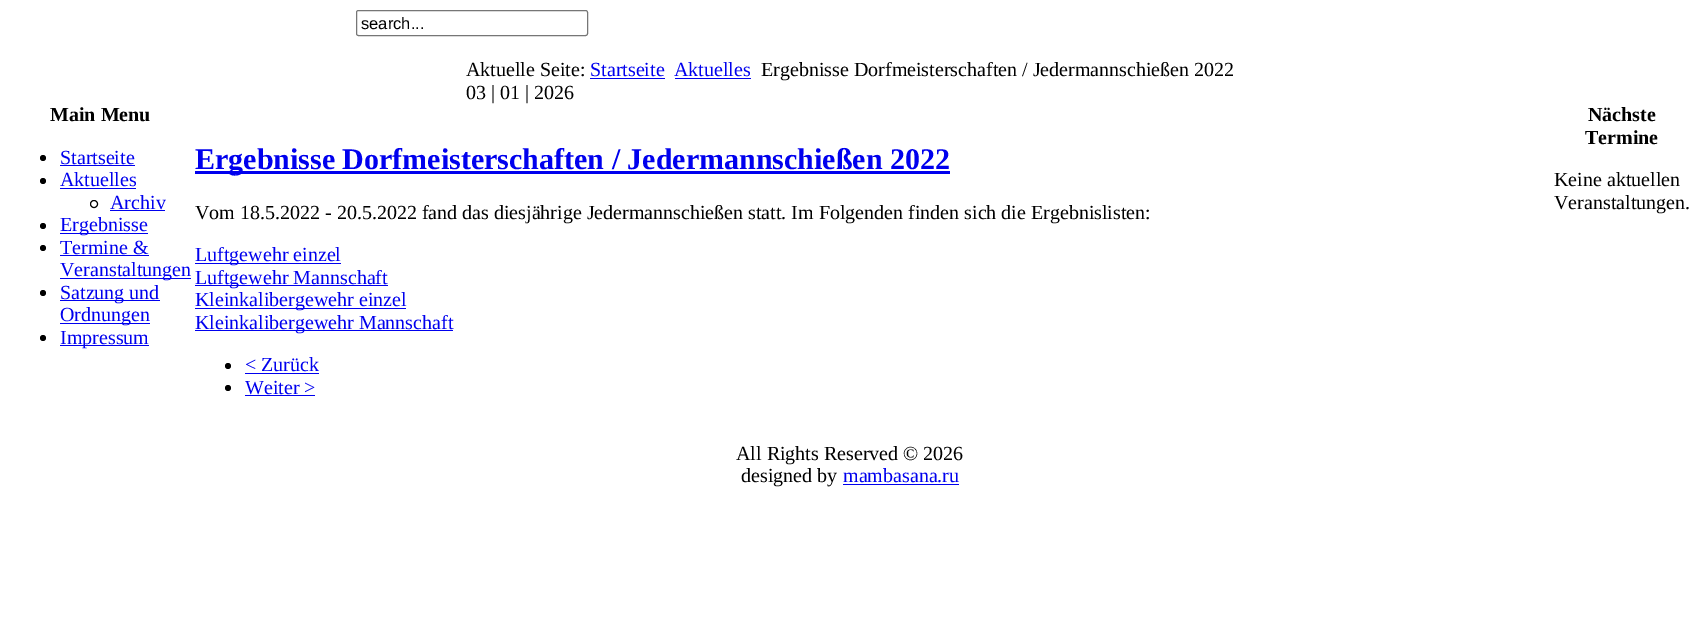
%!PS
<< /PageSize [1700 632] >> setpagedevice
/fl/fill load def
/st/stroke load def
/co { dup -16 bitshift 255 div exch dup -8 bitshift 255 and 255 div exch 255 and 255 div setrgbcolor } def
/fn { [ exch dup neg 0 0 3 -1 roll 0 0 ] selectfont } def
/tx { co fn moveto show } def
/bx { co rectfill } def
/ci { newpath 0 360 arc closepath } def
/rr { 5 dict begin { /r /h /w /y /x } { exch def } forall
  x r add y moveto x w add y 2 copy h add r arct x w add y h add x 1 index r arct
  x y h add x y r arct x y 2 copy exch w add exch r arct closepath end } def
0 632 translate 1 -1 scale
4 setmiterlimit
0 0 1700 632 16#FFFFFF bx
16#767676 co
356.5 10.5 231 25 2 rr st
590 78 75 1 16#0000EE bx
675 78 76 1 16#0000EE bx
16#000000 co
43 158 3 ci fl
60 165 75 1 16#0000EE bx
16#000000 co
43 181 3 ci fl
60 188 76 1 16#0000EE bx
16#000000 co
94 204 3.5 ci st
110 210 55 1 16#0000EE bx
16#000000 co
43 226 3 ci fl
60 233 88 1 16#0000EE bx
16#000000 co
43 248 3 ci fl
60 255 89 1 16#0000EE bx
60 278 131 1 16#0000EE bx
16#000000 co
43 293 3 ci fl
60 300 100 1 16#0000EE bx
60 323 90 1 16#0000EE bx
16#000000 co
43 338 3 ci fl
60 345 89 1 16#0000EE bx
195 171 755 3 16#0000EE bx
195 263 146 1 16#0000EE bx
195 285 193 1 16#0000EE bx
195 308 211 1 16#0000EE bx
195 330 258 1 16#0000EE bx
16#000000 co
228 366 3 ci fl
245 373 74 1 16#0000EE bx
16#000000 co
228 388 3 ci fl
245 395 70 1 16#0000EE bx
843 484 116 1 16#0000EE bx
(search...) 361 29 /LiberationSans-Regular 16.5 16#000000 tx
(Aktuelle Seite:) 466 76 /LiberationSerif-Regular 20 16#000000 tx
(Startseite) 590 76 /LiberationSerif-Regular 20 16#0000EE tx
(Aktuelles) 674 76 /LiberationSerif-Regular 20 16#0000EE tx
(Ergebnisse Dorfmeisterschaften / Jedermannschießen 2022) 761 76 /LiberationSerif-Regular 20 16#000000 tx
(03 | 01 | 2026) 466 99 /LiberationSerif-Regular 20 16#000000 tx
(Main Menu) 50 121 /LiberationSerif-Bold 20 16#000000 tx
(Startseite) 60 164 /LiberationSerif-Regular 20 16#0000EE tx
(Aktuelles) 60 186 /LiberationSerif-Regular 20 16#0000EE tx
(Archiv) 110 209 /LiberationSerif-Regular 20 16#0000EE tx
(Ergebnisse) 60 231 /LiberationSerif-Regular 20 16#0000EE tx
(Termine &) 60 254 /LiberationSerif-Regular 20 16#0000EE tx
(Veranstaltungen) 60 276 /LiberationSerif-Regular 20 16#0000EE tx
(Satzung und) 60 299 /LiberationSerif-Regular 20 16#0000EE tx
(Ordnungen) 60 321 /LiberationSerif-Regular 20 16#0000EE tx
(Impressum) 60 344 /LiberationSerif-Regular 20 16#0000EE tx
(Ergebnisse Dorfmeisterschaften / Jedermannschießen 2022) 195 169 /LiberationSerif-Bold 30 16#0000EE tx
(Vom 18.5.2022 - 20.5.2022 fand das diesjährige Jedermannschießen statt. Im Folgenden finden sich die Ergebnislisten:) 195 219 /LiberationSerif-Regular 20 16#000000 tx
(Luftgewehr einzel) 195 261 /LiberationSerif-Regular 20 16#0000EE tx
(Luftgewehr Mannschaft) 195 284 /LiberationSerif-Regular 20 16#0000EE tx
(Kleinkalibergewehr einzel) 195 306 /LiberationSerif-Regular 20 16#0000EE tx
(Kleinkalibergewehr Mannschaft) 195 329 /LiberationSerif-Regular 20 16#0000EE tx
(< Zurück) 245 371 /LiberationSerif-Regular 20 16#0000EE tx
(Weiter >) 245 394 /LiberationSerif-Regular 20 16#0000EE tx
(Nächste) 1588 121 /LiberationSerif-Bold 20 16#000000 tx
(Termine) 1585 144 /LiberationSerif-Bold 20 16#000000 tx
(Keine aktuellen) 1554 186 /LiberationSerif-Regular 20 16#000000 tx
(Veranstaltungen.) 1554 209 /LiberationSerif-Regular 20 16#000000 tx
(All Rights Reserved © 2026) 736 460 /LiberationSerif-Regular 20 16#000000 tx
(designed by) 741 482 /LiberationSerif-Regular 20 16#000000 tx
(mambasana.ru) 843 482 /LiberationSerif-Regular 20 16#0000EE tx
showpage
